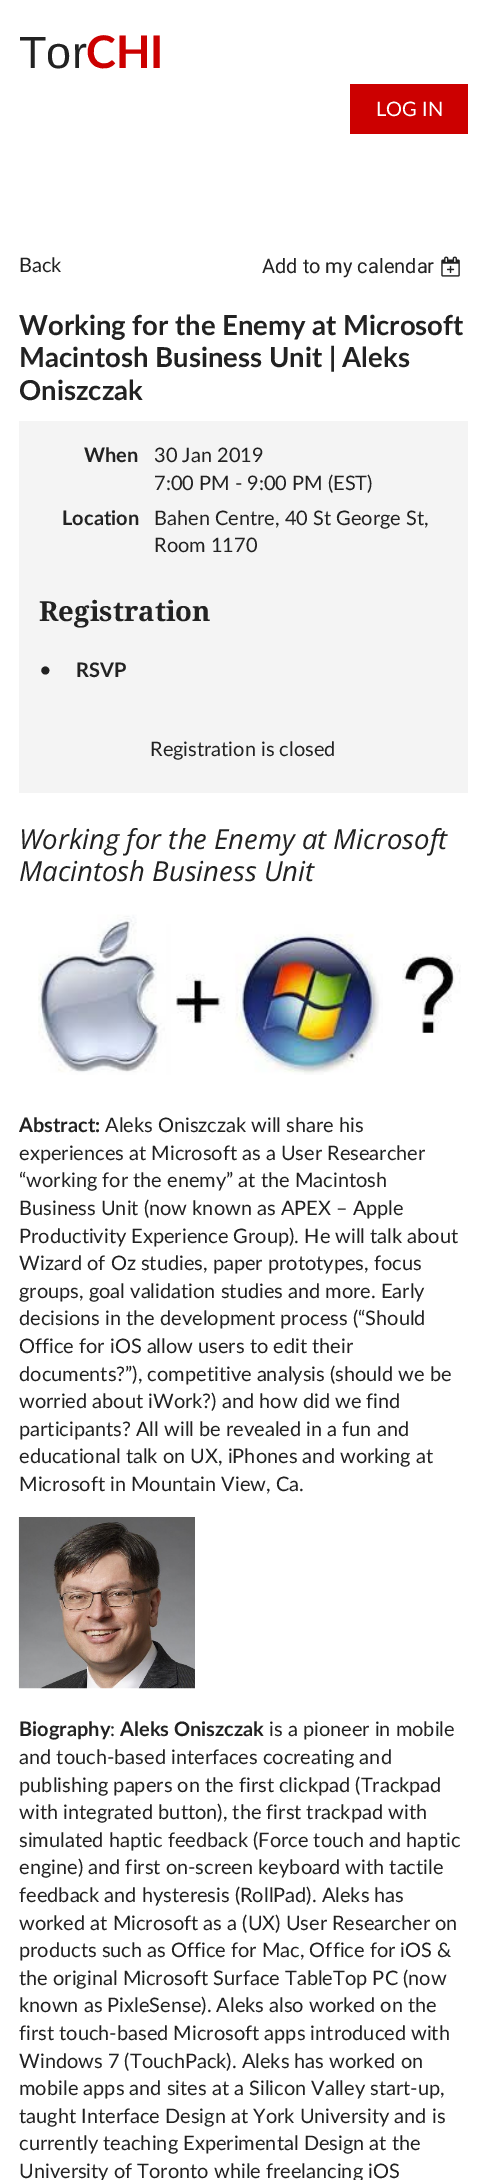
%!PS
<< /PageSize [486 2180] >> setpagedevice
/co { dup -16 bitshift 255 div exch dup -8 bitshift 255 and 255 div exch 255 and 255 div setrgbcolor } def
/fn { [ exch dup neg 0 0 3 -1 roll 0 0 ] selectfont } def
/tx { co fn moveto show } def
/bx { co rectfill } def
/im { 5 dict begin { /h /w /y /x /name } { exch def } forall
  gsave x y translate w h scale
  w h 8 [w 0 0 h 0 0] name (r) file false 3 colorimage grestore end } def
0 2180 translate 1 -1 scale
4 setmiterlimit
0 0 486 2180 16#FFFFFF bx
350 84 118 50 16#CC0000 bx
(media/1.raw) 441 256 19 21 im
19 421 449 372 16#F4F4F4 bx
(media/2.raw) 38 914 423 161 im
(media/3.raw) 18 1517 177 172 im
(Tor) 19 68 /LiberationSans-Regular 45 16#222222 tx
(CHI) 86 68 /Lato-Bold 45 16#CC0000 tx
(LOG IN) 376 116 /Lato-Regular 20 16#FFFFFF tx
(Back) 19 272 /Lato-Regular 20 16#222222 tx
(Add to my calendar) 262 273 /Roboto-Regular 20 16#222222 tx
(Working for the Enemy at Microsoft) 19 335 /Lato-Bold 27.5 16#222222 tx
(Macintosh Business Unit | Aleks) 19 367 /Lato-Bold 27.5 16#222222 tx
(Oniszczak) 19 400 /Lato-Bold 27.5 16#222222 tx
(When) 84 462 /Lato-Bold 20 16#222222 tx
(30 Jan 2019) 154 462 /Lato-Regular 20 16#222222 tx
(7:00 PM - 9:00 PM \(EST\)) 154 490 /Lato-Regular 20 16#222222 tx
(Location) 62 525 /Lato-Bold 20 16#222222 tx
(Bahen Centre, 40 St George St,) 154 525 /Lato-Regular 20 16#222222 tx
(Room 1170) 154 552 /Lato-Regular 20 16#222222 tx
(Registration) 39 621 /DroidSerif-Bold 27.5 16#222222 tx
(•) 39 677 /Lato-Regular 22 16#222222 tx
(RSVP) 76 677 /Lato-Bold 20 16#222222 tx
(Registration is closed) 150 756 /Lato-Regular 20 16#222222 tx
(Working for the Enemy at Microsoft) 19 849 /OpenSans-Italic 27.5 16#222222 tx
(Macintosh Business Unit) 19 881 /OpenSans-Italic 27.5 16#222222 tx
(Abstract:) 19 1132 /Lato-Bold 20 16#222222 tx
(Aleks Oniszczak will share his) 105 1132 /Lato-Regular 20 16#222222 tx
(experiences at Microsoft as a User Researcher) 19 1160 /Lato-Regular 20 16#222222 tx
(“working for the enemy” at the Macintosh) 19 1187 /Lato-Regular 20 16#222222 tx
(Business Unit \(now known as APEX – Apple) 19 1215 /Lato-Regular 20 16#222222 tx
(Productivity Experience Group\). He will talk about) 19 1243 /Lato-Regular 20 16#222222 tx
(Wizard of Oz studies, paper prototypes, focus) 19 1270 /Lato-Regular 20 16#222222 tx
(groups, goal validation studies and more. Early) 19 1298 /Lato-Regular 20 16#222222 tx
(decisions in the development process \(“Should) 19 1325 /Lato-Regular 20 16#222222 tx
(Office for iOS allow users to edit their) 19 1353 /Lato-Regular 20 16#222222 tx
(documents?”\), competitive analysis \(should we be) 19 1381 /Lato-Regular 20 16#222222 tx
(worried about iWork?\) and how did we find) 19 1408 /Lato-Regular 20 16#222222 tx
(participants? All will be revealed in a fun and) 19 1436 /Lato-Regular 20 16#222222 tx
(educational talk on UX, iPhones and working at) 19 1463 /Lato-Regular 20 16#222222 tx
(Microsoft in Mountain View, Ca.) 19 1491 /Lato-Regular 20 16#222222 tx
(Biography) 19 1736 /Lato-Bold 20 16#222222 tx
(:) 110 1736 /Lato-Regular 20 16#222222 tx
(Aleks Oniszczak) 120 1736 /Lato-Bold 20 16#222222 tx
(is a pioneer in mobile) 269 1736 /Lato-Regular 20 16#222222 tx
(and touch-based interfaces cocreating and) 19 1764 /Lato-Regular 20 16#222222 tx
(publishing papers on the first clickpad \(Trackpad) 19 1792 /Lato-Regular 20 16#222222 tx
(with integrated button\), the first trackpad with) 19 1819 /Lato-Regular 20 16#222222 tx
(simulated haptic feedback \(Force touch and haptic) 19 1847 /Lato-Regular 20 16#222222 tx
(engine\) and first on-screen keyboard with tactile) 19 1874 /Lato-Regular 20 16#222222 tx
(feedback and hysteresis \(RollPad\). Aleks has) 19 1902 /Lato-Regular 20 16#222222 tx
(worked at Microsoft as a \(UX\) User Researcher on) 19 1930 /Lato-Regular 20 16#222222 tx
(products such as Office for Mac, Office for iOS &) 19 1957 /Lato-Regular 20 16#222222 tx
(the original Microsoft Surface TableTop PC \(now) 19 1985 /Lato-Regular 20 16#222222 tx
(known as PixleSense\). Aleks also worked on the) 19 2012 /Lato-Regular 20 16#222222 tx
(first touch-based Microsoft apps introduced with) 19 2040 /Lato-Regular 20 16#222222 tx
(Windows 7 \(TouchPack\). Aleks has worked on) 19 2068 /Lato-Regular 20 16#222222 tx
(mobile apps and sites at a Silicon Valley start-up,) 19 2095 /Lato-Regular 20 16#222222 tx
(taught Interface Design at York University and is) 19 2123 /Lato-Regular 20 16#222222 tx
(currently teaching Experimental Design at the) 19 2150 /Lato-Regular 20 16#222222 tx
(University of Toronto while freelancing iOS) 19 2178 /Lato-Regular 20 16#222222 tx
showpage
